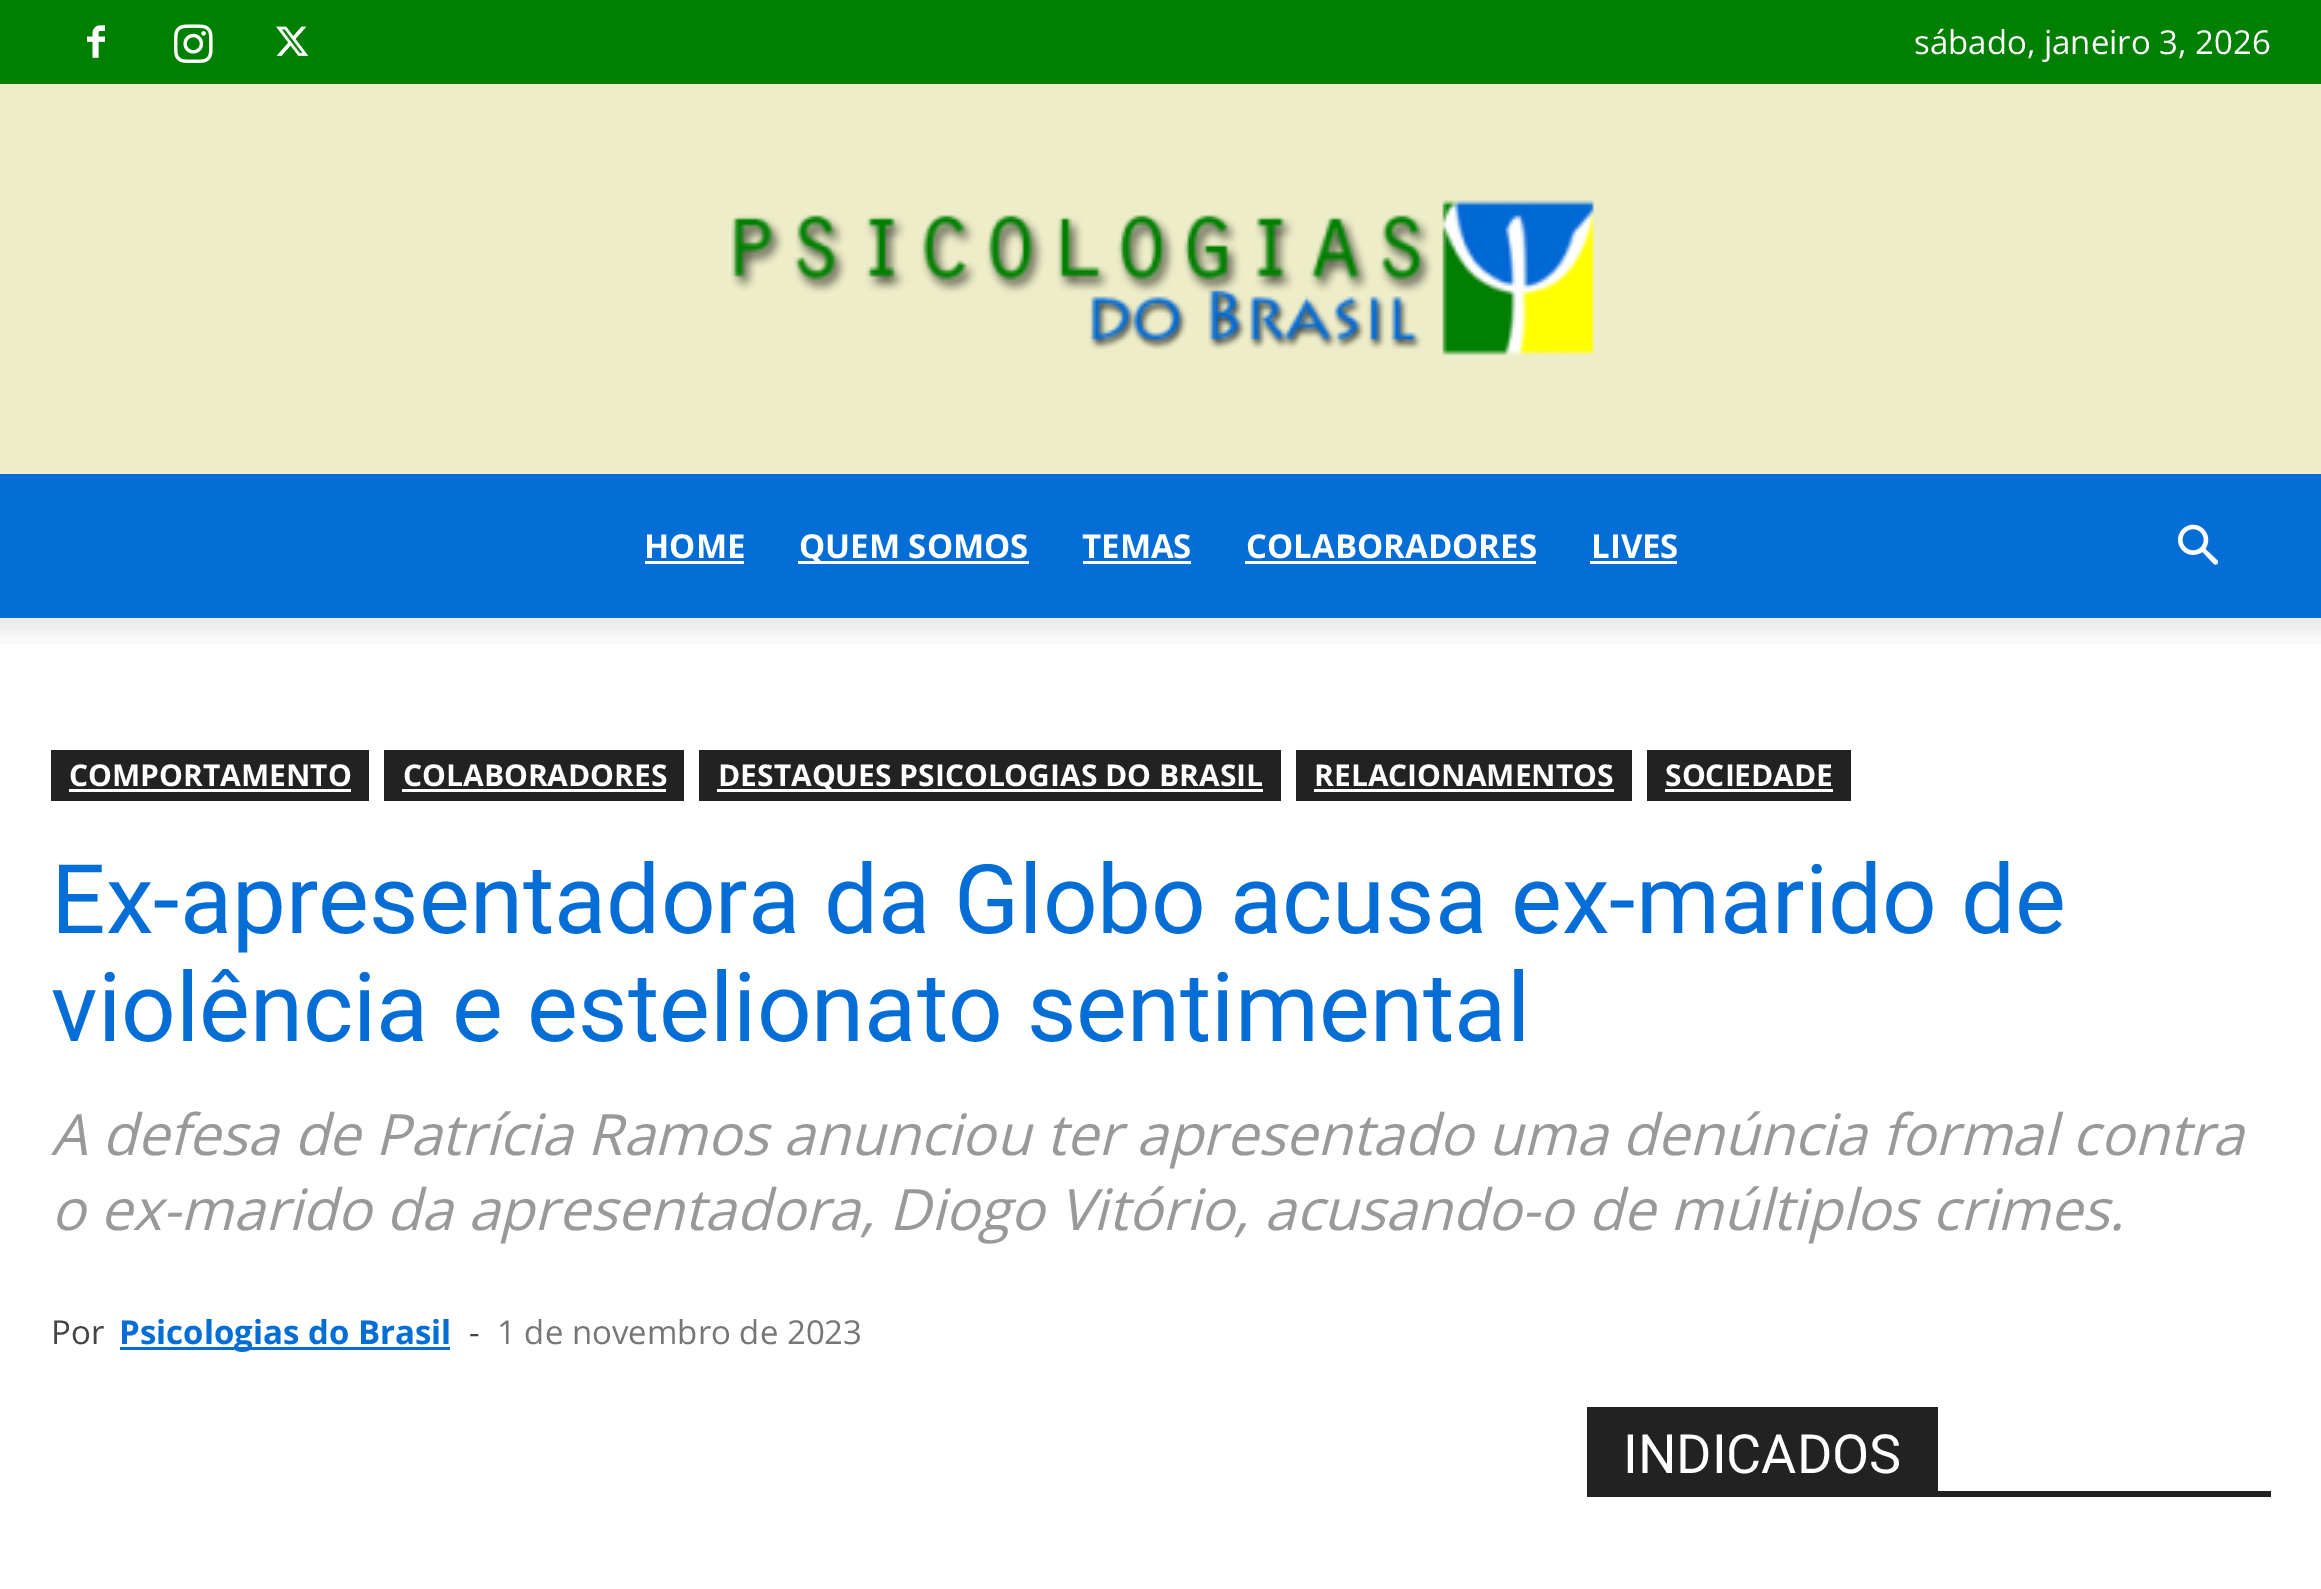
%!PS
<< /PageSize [2321 1589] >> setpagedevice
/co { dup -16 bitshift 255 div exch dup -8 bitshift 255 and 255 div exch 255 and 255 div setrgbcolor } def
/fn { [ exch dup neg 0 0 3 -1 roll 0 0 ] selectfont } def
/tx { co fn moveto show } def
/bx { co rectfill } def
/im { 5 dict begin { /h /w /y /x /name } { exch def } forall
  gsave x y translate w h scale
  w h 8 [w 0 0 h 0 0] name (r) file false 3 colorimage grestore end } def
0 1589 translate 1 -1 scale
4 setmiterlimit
0 0 2321 1589 16#FFFFFF bx
0 0 2321 84 16#008000 bx
(media/1.raw) 87 25 18 33 im
(media/2.raw) 174 24 39 39 im
(media/3.raw) 276 26 33 30 im
0 84 2321 390 16#EDEDC9 bx
(media/4.raw) 731 200 864 155 im
0 474 2321 144 16#046DD6 bx
645 561 99 3 16#FFFFFF bx
798 561 231 3 16#FFFFFF bx
1083 561 108 3 16#FFFFFF bx
1245 561 291 3 16#FFFFFF bx
1590 561 87 3 16#FFFFFF bx
(media/5.raw) 2178 524 41 41 im
(media/6.raw) 0 618 2321 26 im
51 750 318 51 16#222222 bx
69 789 282 3 16#FFFFFF bx
384 750 300 51 16#222222 bx
402 789 264 3 16#FFFFFF bx
699 750 582 51 16#222222 bx
717 789 546 3 16#FFFFFF bx
1296 750 336 51 16#222222 bx
1314 789 300 3 16#FFFFFF bx
1647 750 204 51 16#222222 bx
1665 789 168 3 16#FFFFFF bx
120 1347 330 3 16#046DD6 bx
1587 1491 684 6 16#222222 bx
1587 1407 351 84 16#222222 bx
(sábado, janeiro 3, 2026) 1914 54 /OpenSans-Regular 33 16#FFFFFF tx
(HOME) 644 558 /OpenSans-Bold 33 16#FFFFFF tx
(QUEM SOMOS) 799 558 /OpenSans-Bold 33 16#FFFFFF tx
(TEMAS) 1082 558 /OpenSans-Bold 33 16#FFFFFF tx
(COLABORADORES) 1246 558 /OpenSans-Bold 33 16#FFFFFF tx
(LIVES) 1591 558 /OpenSans-Bold 33 16#FFFFFF tx
(COMPORTAMENTO) 69 786 /OpenSans-Bold 30 16#FFFFFF tx
(COLABORADORES) 403 786 /OpenSans-Bold 30 16#FFFFFF tx
(DESTAQUES PSICOLOGIAS DO BRASIL) 718 786 /OpenSans-Bold 30 16#FFFFFF tx
(RELACIONAMENTOS) 1314 786 /OpenSans-Bold 30 16#FFFFFF tx
(SOCIEDADE) 1665 786 /OpenSans-Bold 30 16#FFFFFF tx
(Ex-apresentadora da Globo acusa ex-marido de) 51 933 /Roboto-Regular 96 16#046DD6 tx
(violência e estelionato sentimental) 51 1041 /Roboto-Regular 96 16#046DD6 tx
(A defesa de Patrícia Ramos anunciou ter apresentado uma denúncia formal contra) 51 1155 /OpenSans-Italic 57 16#999999 tx
(o ex-marido da apresentadora, Diogo Vitório, acusando-o de múltiplos crimes.) 51 1230 /OpenSans-Italic 57 16#999999 tx
(Por) 51 1344 /OpenSans-Regular 33 16#444444 tx
(Psicologias do Brasil) 119 1344 /OpenSans-Bold 33 16#046DD6 tx
(-) 469 1344 /OpenSans-Regular 33 16#444444 tx
(1 de novembro de 2023) 497 1344 /OpenSans-Regular 33 16#767676 tx
(INDICADOS) 1623 1473 /Roboto-Regular 54 16#FFFFFF tx
showpage
